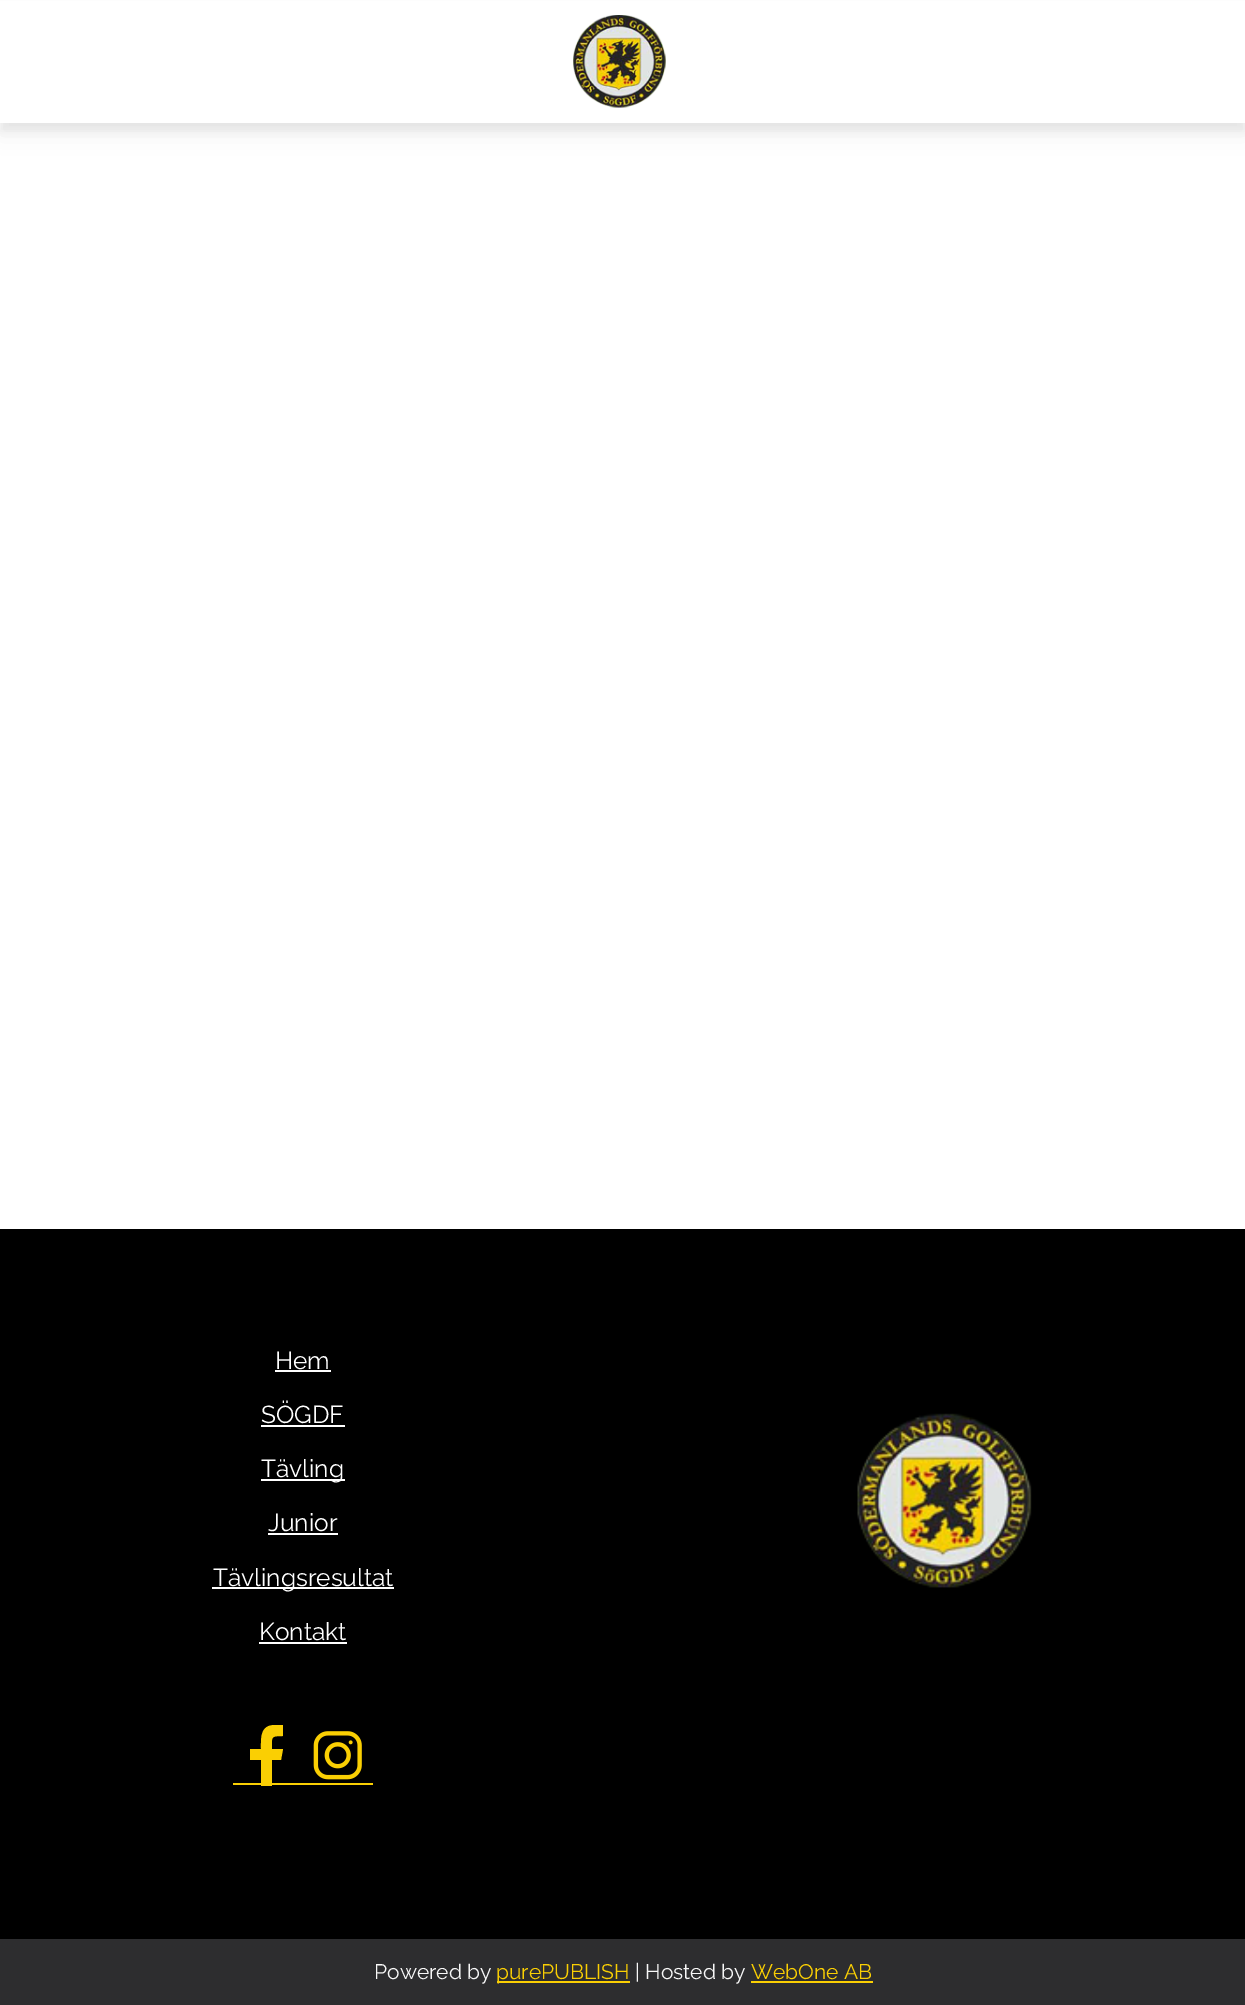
%!PS
<< /PageSize [1245 2005] /PageUsesTransparency true >> setpagedevice
/mt/moveto load def
/li/lineto load def
/ct/curveto load def
/cp/closepath load def
/fl/fill load def
/co { dup -16 bitshift 255 div exch dup -8 bitshift 255 and 255 div exch 255 and 255 div setrgbcolor } def
/fn { [ exch dup neg 0 0 3 -1 roll 0 0 ] selectfont } def
/tx { co fn moveto show } def
/bx { co rectfill } def
/al { dup .setfillconstantalpha .setstrokeconstantalpha } def
/rr { 5 dict begin { /r /h /w /y /x } { exch def } forall
  x r add y moveto x w add y 2 copy h add r arct x w add y h add x 1 index r arct
  x y h add x y r arct x y 2 copy exch w add exch r arct closepath end } def
/sh { 12 dict begin { /a /b /q /h /w /y /x } { exch def } forall gsave /was 0 def
  9 -2 -9 { dup b mul 4 div /e exch def 1 sub .425 mul 2.718 exch exp 1 add a .99 .min exch div /now exch def
    1 1 now sub 1 was sub div sub al /was now def
    w h .min e 2 mul add 0 gt { x e sub y e sub w e 2 mul add h e 2 mul add
      q e add b .6 mul add w h .min 2 div e add .min 0 .max rr fill } if } for grestore end } def
/im { 5 dict begin { /h /w /y /x /name } { exch def } forall
  gsave x y translate w h scale
  w h 8 [w 0 0 h 0 0] name (r) file false 3 colorimage grestore end } def
0 .pushpdf14devicefilter
0 2005 translate 1 -1 scale
4 setmiterlimit
0 0 1245 2005 16#FFFFFF bx
16#000000 co
0 9 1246 122 0 4.5 .05 sh
0 12 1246 123 0 12 .05 sh
0 1 1245 122 16#FFFFFF bx
(media/1.raw) 573 15 93 93 im
0 1229 1245 710 16#000000 bx
275 1370 56 2 16#FFFFFF bx
261 1425 84 2 16#FFFFFF bx
261 1479 84 2 16#FFFFFF bx
268 1533 70 2 16#FFFFFF bx
212 1587 182 2 16#FFFFFF bx
259 1642 88 2 16#FFFFFF bx
(media/2.raw) 857 1413 175 175 im
233 1783 140 2 16#FACF03 bx
275 1725 mt 260 1725 261 1738 261 1749 ct 250 1749 li 250 1760 li 261 1760 li 261 1786 li 272 1786 li 272 1760 li 281 1760 li 283 1749 li 272 1749 li 272 1737 270 1736 283 1736 ct 283 1725 li cp fl
(media/3.raw) 313 1731 49 49 im
0 1939 1245 66 16#2D2D2F bx
497 1981 133 2 16#FACF03 bx
751 1981 122 2 16#FACF03 bx
(Hem) 275 1369 /Raleway-Regular 24.5 16#FFFFFF tx
(SÖGDF) 261 1423 /Raleway-Regular 24.5 16#FFFFFF tx
(Tävling) 261 1477 /Raleway-Regular 24.5 16#FFFFFF tx
(Junior) 268 1531 /Raleway-Regular 24.5 16#FFFFFF tx
(Tävlingsresultat) 213 1586 /Raleway-Regular 24.5 16#FFFFFF tx
(Kontakt) 259 1640 /Raleway-Regular 24.5 16#FFFFFF tx
(Powered by) 374 1979 /Raleway-Regular 21 16#F8F8F8 tx
(purePUBLISH) 496 1979 /Raleway-Regular 21 16#FACF03 tx
(| Hosted by) 635 1979 /Raleway-Regular 21 16#F8F8F8 tx
(WebOne AB) 751 1979 /Raleway-Regular 21 16#FACF03 tx
.poppdf14devicefilter showpage
